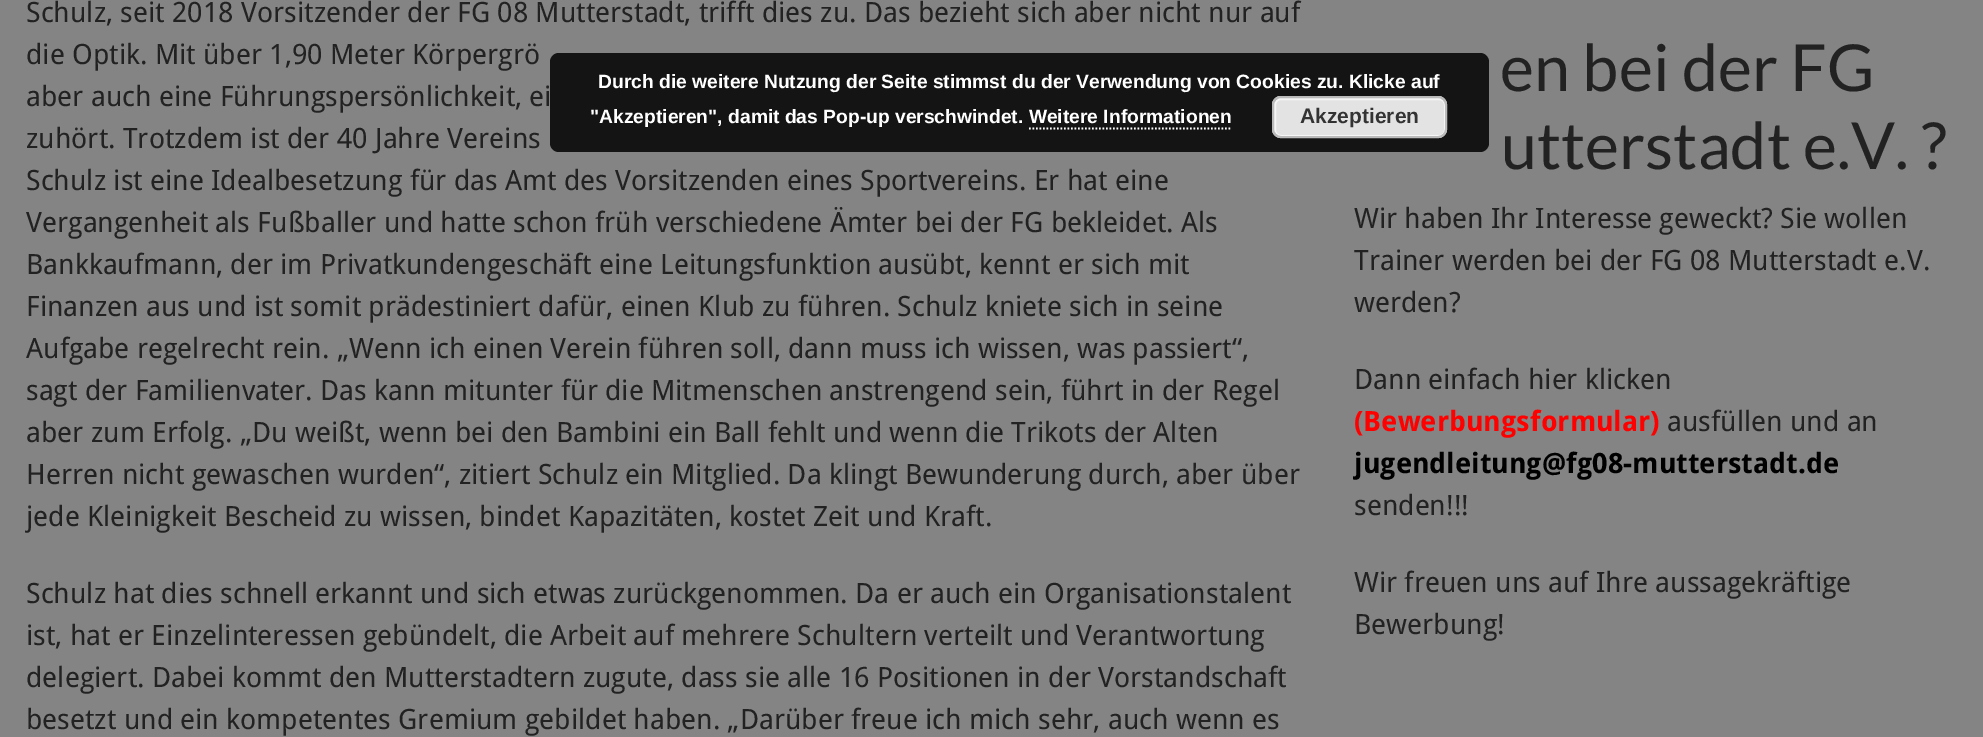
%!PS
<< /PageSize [1983 737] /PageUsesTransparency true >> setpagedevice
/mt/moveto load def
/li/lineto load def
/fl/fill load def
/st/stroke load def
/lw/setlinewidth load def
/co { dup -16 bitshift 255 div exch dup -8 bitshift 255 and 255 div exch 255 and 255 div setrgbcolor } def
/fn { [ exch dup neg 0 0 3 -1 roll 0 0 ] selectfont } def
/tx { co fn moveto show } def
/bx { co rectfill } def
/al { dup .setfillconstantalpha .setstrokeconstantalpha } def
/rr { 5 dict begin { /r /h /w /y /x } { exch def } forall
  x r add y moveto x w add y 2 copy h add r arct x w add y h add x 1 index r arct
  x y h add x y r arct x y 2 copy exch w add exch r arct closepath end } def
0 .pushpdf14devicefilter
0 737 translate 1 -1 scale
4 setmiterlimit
0 0 1983 737 16#848484 bx
0.85 al
16#000000 co
550 53 939 99 9 rr fl
1 al
16#E3E3E3 co
1272 96 175 42 9 rr fl
16#F6F6F6 co
2 lw
1275 99 170 37 6 rr st
16#BBBBBB co
1273 97 173 40 8 rr st
16#FFFFFF co
1.8 lw
[1.75 1.75] 0 setdash
1029 128.5 mt 1232 128.5 li st
(Schulz, seit 2018 Vorsitzender der FG 08 Mutterstadt, trifft dies zu. Das bezieht sich aber nicht nur auf) 26 22 /DroidSans-Regular 28 16#222222 tx
(die Optik. Mit über 1,90 Meter Körpergrö) 26 64 /DroidSans-Regular 28 16#222222 tx
(aber auch eine Führungspersönlichkeit, ei) 26 106 /DroidSans-Regular 28 16#222222 tx
(zuhört. Trotzdem ist der 40 Jahre Vereins) 26 148 /DroidSans-Regular 28 16#222222 tx
(Schulz ist eine Idealbesetzung für das Amt des Vorsitzenden eines Sportvereins. Er hat eine) 26 190 /DroidSans-Regular 28 16#222222 tx
(Vergangenheit als Fußballer und hatte schon früh verschiedene Ämter bei der FG bekleidet. Als) 26 232 /DroidSans-Regular 28 16#222222 tx
(Bankkaufmann, der im Privatkundengeschäft eine Leitungsfunktion ausübt, kennt er sich mit) 26 274 /DroidSans-Regular 28 16#222222 tx
(Finanzen aus und ist somit prädestiniert dafür, einen Klub zu führen. Schulz kniete sich in seine) 26 316 /DroidSans-Regular 28 16#222222 tx
(Aufgabe regelrecht rein. „Wenn ich einen Verein führen soll, dann muss ich wissen, was passiert“,) 26 358 /DroidSans-Regular 28 16#222222 tx
(sagt der Familienvater. Das kann mitunter für die Mitmenschen anstrengend sein, führt in der Regel) 26 400 /DroidSans-Regular 28 16#222222 tx
(aber zum Erfolg. „Du weißt, wenn bei den Bambini ein Ball fehlt und wenn die Trikots der Alten) 26 442 /DroidSans-Regular 28 16#222222 tx
(Herren nicht gewaschen wurden“, zitiert Schulz ein Mitglied. Da klingt Bewunderung durch, aber über) 26 484 /DroidSans-Regular 28 16#222222 tx
(jede Kleinigkeit Bescheid zu wissen, bindet Kapazitäten, kostet Zeit und Kraft.) 26 526 /DroidSans-Regular 28 16#222222 tx
(Schulz hat dies schnell erkannt und sich etwas zurückgenommen. Da er auch ein Organisationstalent) 26 603 /DroidSans-Regular 28 16#222222 tx
(ist, hat er Einzelinteressen gebündelt, die Arbeit auf mehrere Schultern verteilt und Verantwortung) 26 645 /DroidSans-Regular 28 16#222222 tx
(delegiert. Dabei kommt den Mutterstadtern zugute, dass sie alle 16 Positionen in der Vorstandschaft) 26 687 /DroidSans-Regular 28 16#222222 tx
(besetzt und ein kompetentes Gremium gebildet haben. „Darüber freue ich mich sehr, auch wenn es) 26 729 /DroidSans-Regular 28 16#222222 tx
(en bei der FG) 1500 91 /Lato-Regular 64.75 16#222222 tx
(utterstadt e.V. ?) 1501 169 /Lato-Regular 64.75 16#222222 tx
(Wir haben Ihr Interesse geweckt? Sie wollen) 1354 228 /DroidSans-Regular 28 16#222222 tx
(Trainer werden bei der FG 08 Mutterstadt e.V.) 1354 270 /DroidSans-Regular 28 16#222222 tx
(werden?) 1354 312 /DroidSans-Regular 28 16#222222 tx
(Dann einfach hier klicken) 1354 389 /DroidSans-Regular 28 16#222222 tx
(\(Bewerbungsformular\)) 1354 431 /DroidSans-Bold 28 16#FF0000 tx
(ausfüllen und an) 1667 431 /DroidSans-Regular 28 16#222222 tx
(jugendleitung@fg08-mutterstadt.de) 1354 473 /DroidSans-Bold 28 16#000000 tx
(senden!!!) 1354 515 /DroidSans-Regular 28 16#222222 tx
(Wir freuen uns auf Ihre aussagekräftige) 1354 592 /DroidSans-Regular 28 16#222222 tx
(Bewerbung!) 1354 634 /DroidSans-Regular 28 16#222222 tx
(Durch die weitere Nutzung der Seite stimmst du der Verwendung von Cookies zu. Klicke auf) 598 88 /LiberationSans-Bold 19.25 16#FFFFFF tx
("Akzeptieren", damit das Pop-up verschwindet. Weitere Informationen) 590 123 /LiberationSans-Bold 19.25 16#FFFFFF tx
(Akzeptieren) 1300 123 /LiberationSans-Bold 21 16#333333 tx
.poppdf14devicefilter showpage
